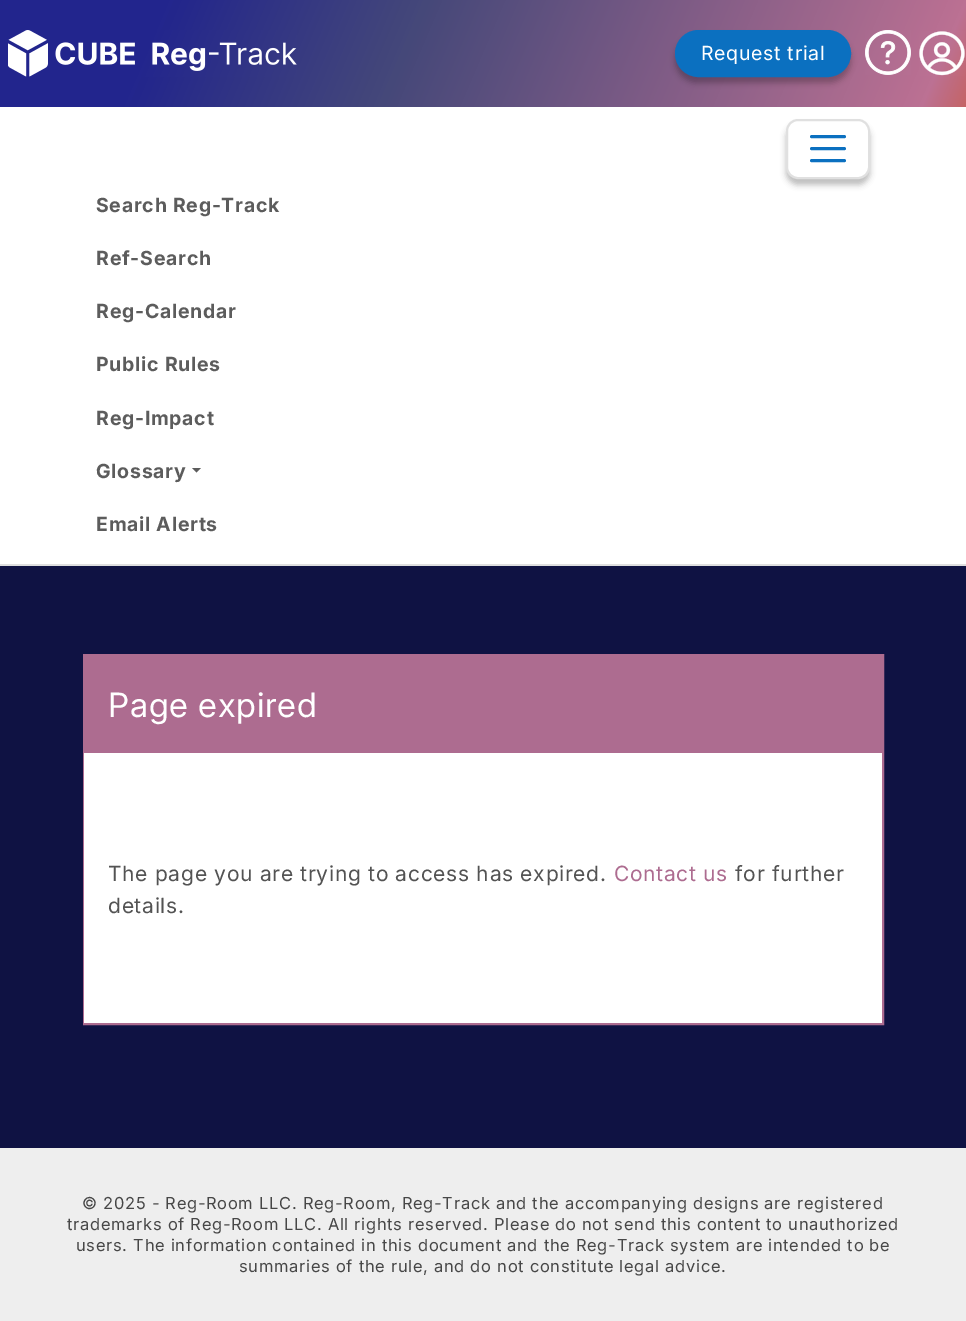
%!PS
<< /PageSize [966 1321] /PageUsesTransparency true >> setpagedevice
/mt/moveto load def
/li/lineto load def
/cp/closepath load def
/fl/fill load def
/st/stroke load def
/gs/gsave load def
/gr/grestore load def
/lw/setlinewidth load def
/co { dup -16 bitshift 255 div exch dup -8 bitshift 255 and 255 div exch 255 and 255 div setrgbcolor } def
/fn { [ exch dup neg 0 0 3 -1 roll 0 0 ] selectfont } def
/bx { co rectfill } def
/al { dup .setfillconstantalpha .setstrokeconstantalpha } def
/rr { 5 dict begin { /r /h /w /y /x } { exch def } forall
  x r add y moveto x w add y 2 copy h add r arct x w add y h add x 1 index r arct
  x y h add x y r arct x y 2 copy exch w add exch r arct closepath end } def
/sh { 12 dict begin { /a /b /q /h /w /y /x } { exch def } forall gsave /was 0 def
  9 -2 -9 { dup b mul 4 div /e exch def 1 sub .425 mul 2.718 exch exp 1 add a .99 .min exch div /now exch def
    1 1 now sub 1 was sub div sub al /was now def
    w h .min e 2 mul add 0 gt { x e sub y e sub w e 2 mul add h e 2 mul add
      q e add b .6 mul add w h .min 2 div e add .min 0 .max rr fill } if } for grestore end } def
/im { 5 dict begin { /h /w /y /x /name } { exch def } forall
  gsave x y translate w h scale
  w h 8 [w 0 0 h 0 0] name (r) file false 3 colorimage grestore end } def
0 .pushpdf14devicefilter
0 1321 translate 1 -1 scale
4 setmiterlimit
0 0 966 1321 16#0F1243 bx
gs 0 0 mt 966 0 li 966 107 li 0 107 li cp clip newpath
<< /ShadingType 2 /ColorSpace /DeviceRGB /Coords [55 -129 936 246] /Extend [true true] /Function << /FunctionType 3 /Domain [0 1] /Functions [<< /FunctionType 2 /Domain [0 1] /C0 [.133 .145 .553] /C1 [.133 .145 .553] /N 1 >> << /FunctionType 2 /Domain [0 1] /C0 [.133 .145 .553] /C1 [.271 .282 .475] /N 1 >> << /FunctionType 2 /Domain [0 1] /C0 [.271 .282 .475] /C1 [.737 .443 .576] /N 1 >> << /FunctionType 2 /Domain [0 1] /C0 [.737 .443 .576] /C1 [.796 .361 .275] /N 1 >>] /Bounds [.16 .41 .93] /Encode [0 1 0 1 0 1 0 1] >> >> shfill gr
(media/1.raw) 8 30 289 47 im
16#000000 co
675 36 176 47 23.5 3 .25 sh
16#0B70C0 co
676.5 31.5 173 44 22 rr gs fl gr
3 lw
st
(media/2.raw) 865 30 46 45 im
(media/3.raw) 919 31 46 45 im
0 107 966 457 16#FFFFFF bx
0 564 966 2 16#DFDFDF bx
16#000000 co
786 125 84 60 12 3 .25 sh
16#FFFFFF co
787 120 82 58 11 rr gs fl gr
16#E0E0E0 co
2 lw
st
16#0B70C0 co
3 lw
1 setlinecap
811.5 136.5 mt 844.5 136.5 li 811.5 148.5 mt 844.5 148.5 li 811.5 160.5 mt 844.5 160.5 li st
16#5C5C5C co
192 468 mt 201 468 li 196.5 472.5 li cp fl
16#AD6C90 co
2 lw
0 setlinecap
84 655 799 369 rectstroke
85 656 797 97 16#AD6C90 bx
84 753 798 270 16#FFFFFF bx
0 1148 966 173 16#EEEEEE bx
/Inter-Regular 19.5 fn
16#FFFFFF co
701 60 mt .7 0 (Request trial) ashow
/Inter-Bold 19.5 fn
16#5C5C5C co
96 212 mt .7 0 (Search Reg-Track) ashow
96 265 mt .7 0 (Ref-Search) ashow
96 318 mt .7 0 (Reg-Calendar) ashow
96 371 mt .7 0 (Public Rules) ashow
96 425 mt .7 0 (Reg-Impact) ashow
96 478 mt .7 0 (Glossary) ashow
96 531 mt .7 0 (Email Alerts) ashow
/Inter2-Regular 33.5 fn
16#FFFFFF co
108 717 mt .7 0 (Page expired) ashow
/Inter-Regular 21 fn
16#535353 co
108 881 mt .7 0 (The page you are trying to access has expired.) ashow
16#AD6C90 co
614 881 mt .7 0 (Contact us) ashow
16#535353 co
735 881 mt .7 0 (for further) ashow
108 913 mt .7 0 (details.) ashow
/Inter-Regular 16.5 fn
16#474747 co
82 1209 mt .7 0 (© 2025 - Reg-Room LLC. Reg-Room, Reg-Track and the accompanying designs are registered) ashow
67 1230 mt .7 0 (trademarks of Reg-Room LLC. All rights reserved. Please do not send this content to unauthorized) ashow
76 1251 mt .7 0 (users. The information contained in this document and the Reg-Track system are intended to be) ashow
239 1272 mt .7 0 (summaries of the rule, and do not constitute legal advice.) ashow
.poppdf14devicefilter showpage
